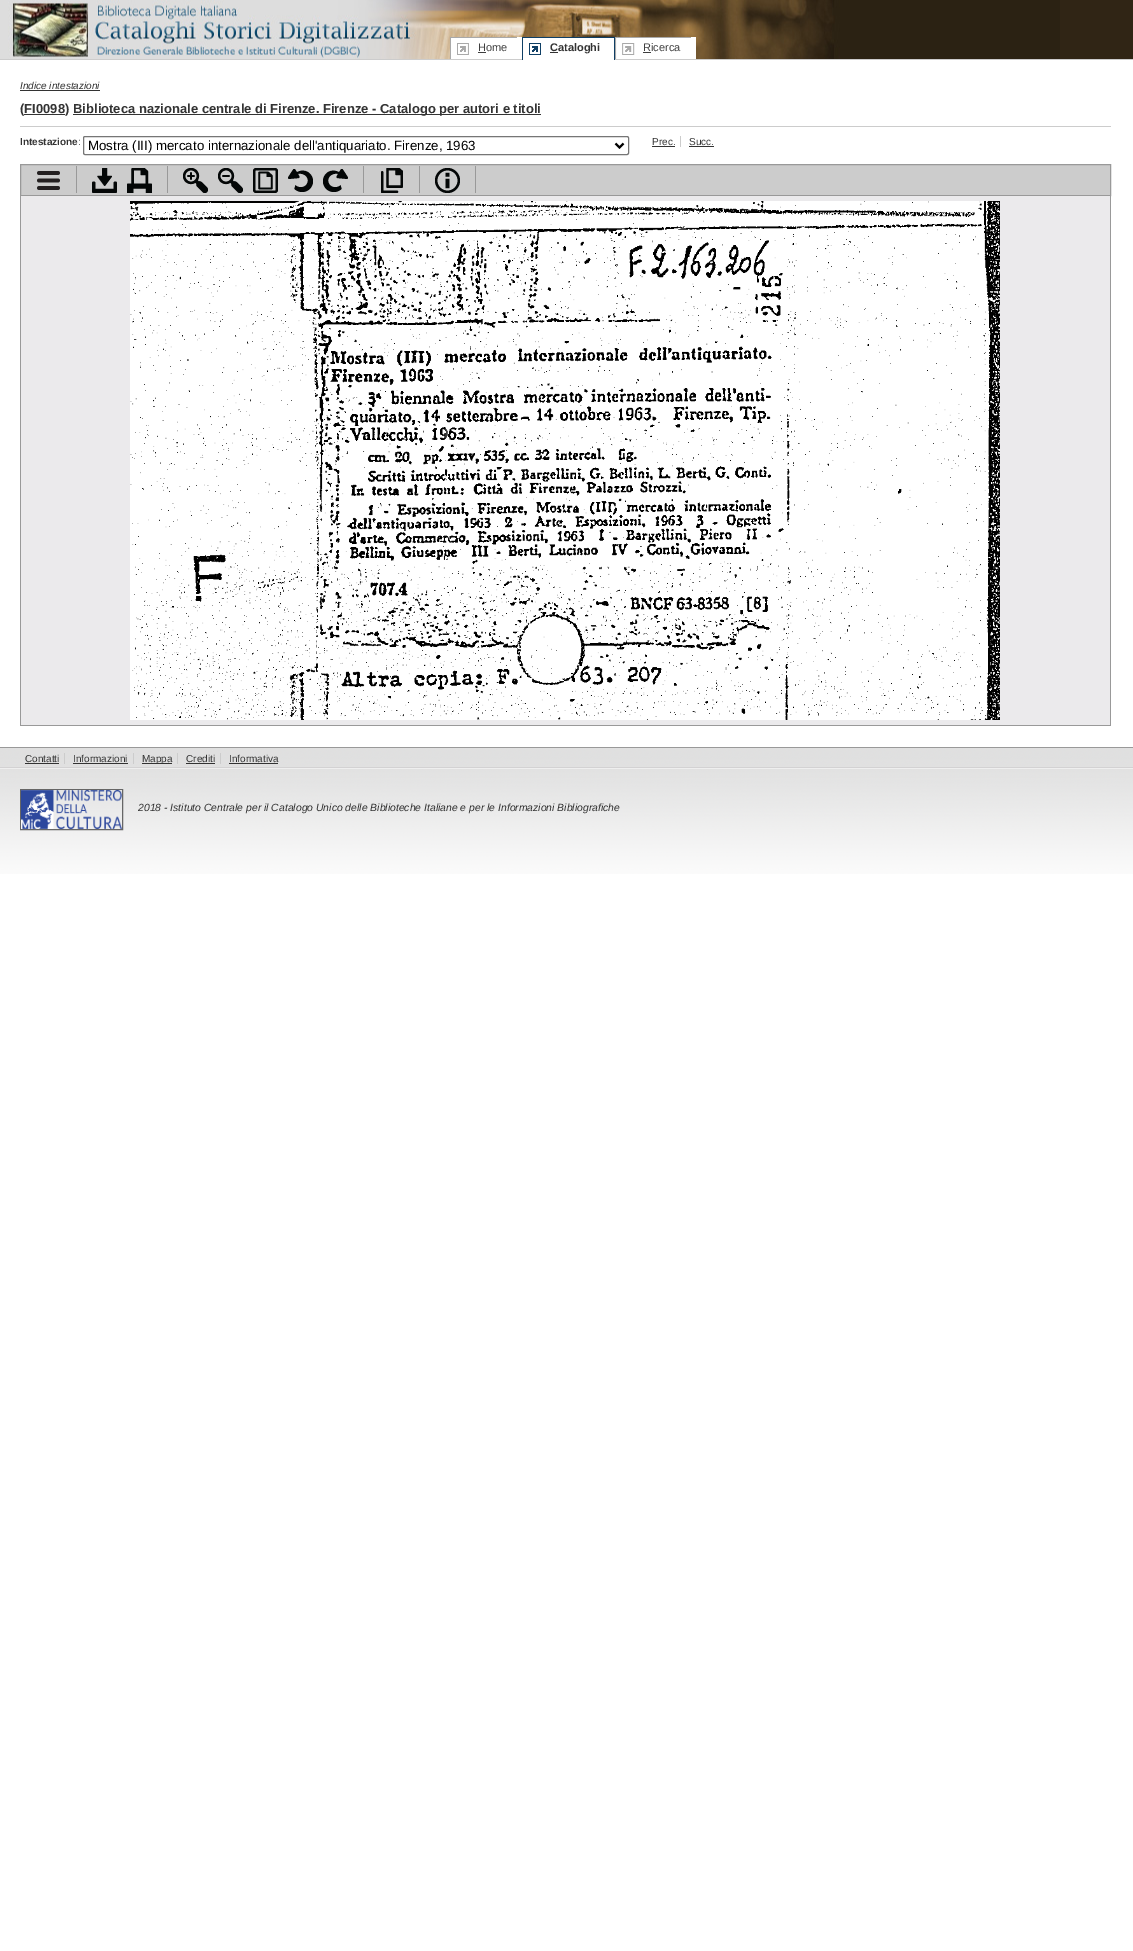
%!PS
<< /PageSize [1133 1951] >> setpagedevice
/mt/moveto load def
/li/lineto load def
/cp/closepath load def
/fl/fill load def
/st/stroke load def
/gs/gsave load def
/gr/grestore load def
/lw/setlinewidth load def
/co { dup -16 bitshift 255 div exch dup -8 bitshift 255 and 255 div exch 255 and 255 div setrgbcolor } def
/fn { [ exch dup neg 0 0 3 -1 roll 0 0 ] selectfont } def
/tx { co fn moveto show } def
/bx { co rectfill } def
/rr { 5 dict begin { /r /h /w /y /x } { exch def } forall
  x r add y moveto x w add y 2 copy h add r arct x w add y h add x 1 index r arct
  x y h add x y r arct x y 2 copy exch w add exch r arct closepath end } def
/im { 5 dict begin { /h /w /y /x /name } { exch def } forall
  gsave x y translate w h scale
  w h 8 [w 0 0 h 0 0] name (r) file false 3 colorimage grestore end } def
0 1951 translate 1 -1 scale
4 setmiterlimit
0 0 1133 1951 16#FFFFFF bx
0 59 1133 1 16#CCCCCC bx
1060 0 73 59 16#302515 bx
(media/1.raw) 0 0 1060 59 im
(media/2.raw) 450 37 67 22 im
517 37 5 22 16#FFFFFF bx
478 52 8 1 16#3F3F3F bx
(media/3.raw) 522 37 93 23 im
614 38 1 22 16#0F3F65 bx
550 52 8 1 16#333333 bx
(media/4.raw) 615 37 76 22 im
691 37 5 22 16#FFFFFF bx
643 52 8 1 16#3F3F3F bx
20 90 80 1 16#333333 bx
73 114 468 1 16#333333 bx
24 114 41 1 16#333333 bx
20 126 1091 1 16#CCCCCC bx
16#767676 co
83.5 136.5 545 18 1.5 rr st
16#000000 co
2 lw
615.5 143.5 mt 619.5 147.5 li 623.5 143.5 li st
680 136 1 11 16#CCCCCC bx
652 146 23 1 16#333333 bx
689 146 25 1 16#333333 bx
16#CCCCCC co
20.5 164.5 mt 1110.5 164.5 li 1110.5 195.5 li 20.5 195.5 li cp gs fl gr
16#999999 co
1 lw
st
76 166 1 27 16#999999 bx
(media/5.raw) 37 171 23 19 im
167 166 1 27 16#999999 bx
(media/6.raw) 92 168 25 25 im
(media/7.raw) 127 168 25 25 im
363 166 1 27 16#999999 bx
(media/8.raw) 183 168 25 25 im
(media/9.raw) 218 168 25 25 im
(media/10.raw) 253 168 25 25 im
(media/11.raw) 288 169 25 23 im
(media/12.raw) 323 169 25 23 im
419 166 1 27 16#999999 bx
(media/13.raw) 381 168 22 25 im
475 166 1 27 16#999999 bx
(media/14.raw) 435 168 25 25 im
21 196 1089 529 16#EBEAEC bx
1110 196 1 530 16#999999 bx
20 725 1091 1 16#999999 bx
20 196 1 530 16#999999 bx
(media/15.raw) 130 201 870 519 im
(media/16.raw) 0 748 1133 126 im
0 747 1133 1 16#999999 bx
(media/17.raw) 0 767 1133 2 im
64 753 1 11 16#CCCCCC bx
25 763 34 1 16#333333 bx
133 753 1 11 16#CCCCCC bx
73 763 55 1 16#333333 bx
177 753 1 11 16#CCCCCC bx
142 763 30 1 16#333333 bx
220 753 1 11 16#CCCCCC bx
186 763 29 1 16#333333 bx
229 763 49 1 16#333333 bx
16#666666 co
20.5 789.5 102 40 rectstroke
(media/18.raw) 21 790 101 39 im
(Home) 478 51 /LiberationSans-Regular 11 16#3F3F3F tx
(Cataloghi) 550 51 /LiberationSans-Bold 11 16#333333 tx
(Ricerca) 643 51 /LiberationSans-Regular 11 16#3F3F3F tx
(Indice intestazioni) 20 89 /LiberationSans-Italic 10 16#333333 tx
(\(FI0098) 20 113 /LiberationSans-Bold 13 16#333333 tx
(\)) 65 113 /LiberationSans-Bold 13 16#333333 tx
(Biblioteca nazionale centrale di Firenze. Firenze - Catalogo per autori e titoli) 73 113 /LiberationSans-Bold 13 16#333333 tx
(Intestazione) 20 145 /LiberationSans-Bold 10 16#333333 tx
(:) 78 145 /LiberationSans-Regular 10 16#333333 tx
(Mostra \(III\) mercato internazionale dell'antiquariato. Firenze, 1963) 88 150 /LiberationSans-Regular 13.3 16#000000 tx
(Prec.) 652 145 /LiberationSans-Regular 10 16#333333 tx
(Succ.) 689 145 /LiberationSans-Regular 10 16#333333 tx
(Contatti) 25 762 /LiberationSans-Regular 10 16#333333 tx
(Informazioni) 73 762 /LiberationSans-Regular 10 16#333333 tx
(Mappa) 142 762 /LiberationSans-Regular 10 16#333333 tx
(Crediti) 186 762 /LiberationSans-Regular 10 16#333333 tx
(Informativa) 229 762 /LiberationSans-Regular 10 16#333333 tx
(2018 - Istituto Centrale per il Catalogo Unico delle Biblioteche Italiane e per le Informazioni Bibliografiche) 138 811 /LiberationSans-Italic 10.4 16#333333 tx
showpage
